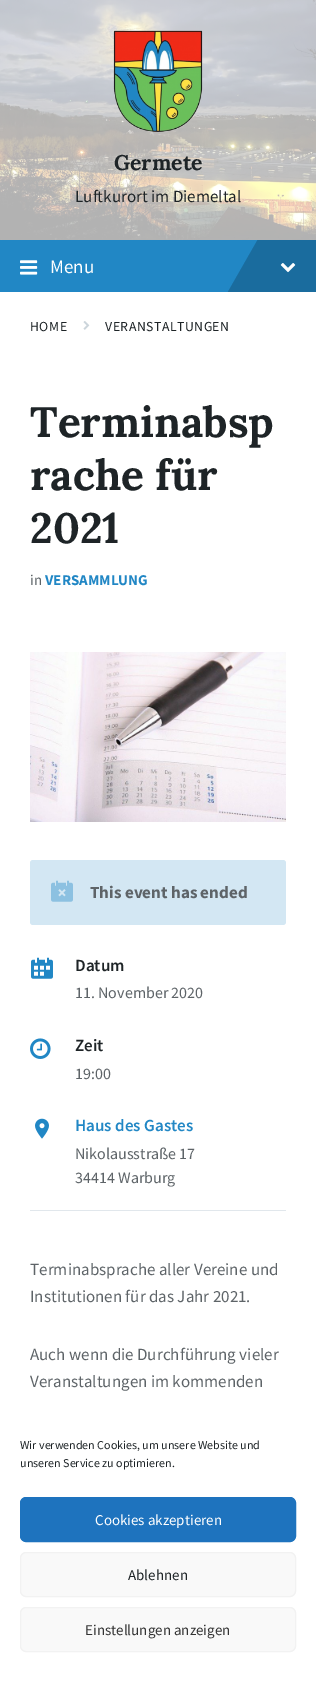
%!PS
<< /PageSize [316 1684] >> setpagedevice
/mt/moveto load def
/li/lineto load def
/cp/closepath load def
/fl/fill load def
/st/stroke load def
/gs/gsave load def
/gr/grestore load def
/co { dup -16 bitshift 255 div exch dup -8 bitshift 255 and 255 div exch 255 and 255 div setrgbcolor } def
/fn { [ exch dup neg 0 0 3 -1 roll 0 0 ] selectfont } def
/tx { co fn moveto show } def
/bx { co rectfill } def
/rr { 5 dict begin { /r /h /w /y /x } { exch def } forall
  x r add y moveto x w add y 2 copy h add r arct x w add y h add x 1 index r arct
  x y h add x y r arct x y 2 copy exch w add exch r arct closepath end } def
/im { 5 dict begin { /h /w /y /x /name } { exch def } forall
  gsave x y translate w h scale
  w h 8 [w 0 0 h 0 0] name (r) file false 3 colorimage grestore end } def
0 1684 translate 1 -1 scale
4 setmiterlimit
0 0 316 1684 16#FFFFFF bx
(media/1.raw) 0 0 316 240 im
(media/2.raw) 113 30 90 102 im
0 240 258 52 16#2187C5 bx
(media/3.raw) 20 260 18 15 im
gs
0 240 316 52 rectclip
16#1A6C9E co
277 206 mt 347 246 li 295 337 li 225 297 li cp fl
gr
(media/4.raw) 280 263 16 10 im
(media/5.raw) 83 321 7 9 im
(media/6.raw) 30 652 256 170 im
16#D3E7F3 co
30 860 256 65 3 rr fl
(media/7.raw) 51 880 22 22 im
30 1210 256 1 16#E1E7EC bx
(media/8.raw) 31 957 22 22 im
(media/9.raw) 30 1038 21 21 im
(media/10.raw) 35 1118 14 21 im
16#1E73BE co
20.5 1497.5 275 44 5.5 rr gs fl gr
st
16#F9F9F9 co
20.5 1552.5 275 44 5.5 rr gs fl gr
16#F2F2F2 co
st
16#F9F9F9 co
20.5 1607.5 275 44 5.5 rr gs fl gr
16#F2F2F2 co
st
(Germete) 114 170 /Lora-Bold 21.25 16#1E2427 tx
(Luftkurort im Diemeltal) 75 202 /SourceSansPro-Regular 17 16#1E2427 tx
(Menu) 50 273 /SourceSansPro-Regular 19 16#FFFFFF tx
/SourceSansPro-Regular 13.75 fn
16#1E2427 co
30 331 mt .5 0 (HOME) ashow
105 331 mt .5 0 (VERANSTALTUNGEN) ashow
(Terminabsp) 30 437 /Lora-Bold 42.5 16#1E2427 tx
(rache für) 30 490 /Lora-Bold 42.5 16#1E2427 tx
(2021) 30 543 /Lora-Bold 42.5 16#1E2427 tx
(in) 30 585 /SourceSansPro-Regular 15 16#5E6468 tx
(VERSAMMLUNG) 45 585 /SourceSansPro-Bold 15 16#2187C5 tx
(This event has ended) 90 898 /SourceSansPro-Bold 17 16#5E6468 tx
(Datum) 75 971 /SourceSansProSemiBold-SemiBold 17 16#1E2427 tx
(11. November 2020) 75 998 /SourceSansPro-Regular 16 16#5E6468 tx
(Zeit) 75 1051 /SourceSansProSemiBold-SemiBold 17 16#1E2427 tx
(19:00) 75 1079 /SourceSansPro-Regular 16 16#5E6468 tx
(Haus des Gastes) 75 1131 /SourceSansProSemiBold-SemiBold 17 16#2187C5 tx
(Nikolausstraße 17) 75 1159 /SourceSansPro-Regular 16 16#5E6468 tx
(34414 Warburg) 75 1183 /SourceSansPro-Regular 16 16#5E6468 tx
(Terminabsprache aller Vereine und) 30 1275 /SourceSansPro-Regular 17 16#5E6468 tx
(Institutionen für das Jahr 2021.) 30 1302 /SourceSansPro-Regular 17 16#5E6468 tx
(Auch wenn die Durchführung vieler) 30 1360 /SourceSansPro-Regular 17 16#5E6468 tx
(Veranstaltungen im kommenden) 30 1387 /SourceSansPro-Regular 17 16#5E6468 tx
(Wir verwenden Cookies, um unsere Website und) 20 1449 /SourceSansPro-Regular 12 16#1E2427 tx
(unseren Service zu optimieren.) 20 1467 /SourceSansPro-Regular 12 16#1E2427 tx
(Cookies akzeptieren) 95 1525 /SourceSansPro-Regular 15 16#FFFFFF tx
(Ablehnen) 128 1580 /SourceSansPro-Regular 15 16#1E2427 tx
(Einstellungen anzeigen) 85 1635 /SourceSansPro-Regular 15 16#333333 tx
showpage
